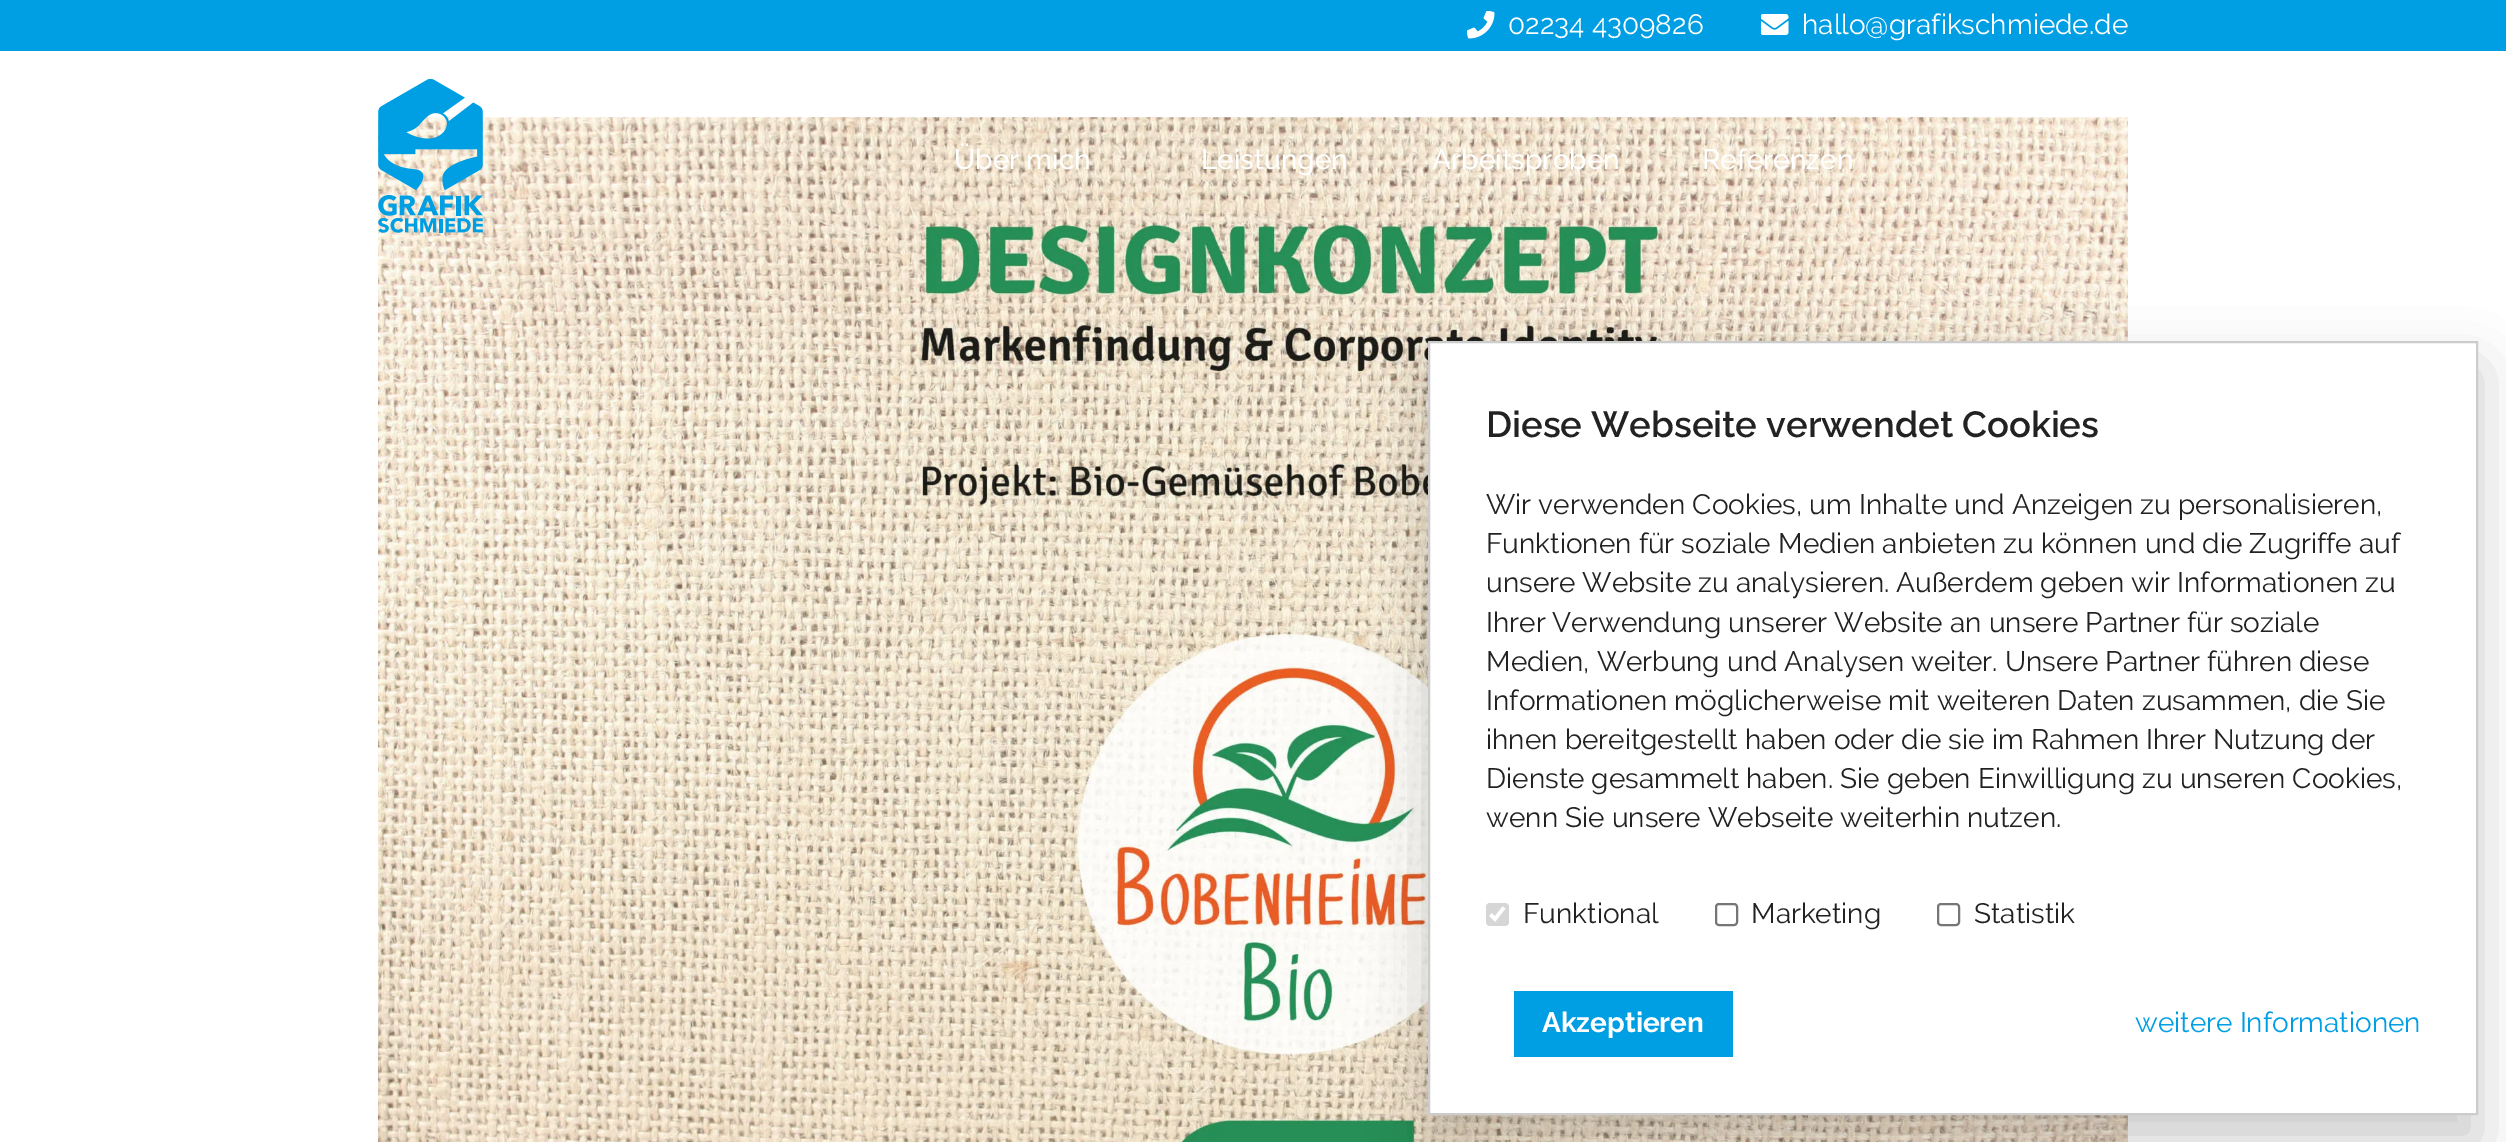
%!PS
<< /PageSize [2506 1142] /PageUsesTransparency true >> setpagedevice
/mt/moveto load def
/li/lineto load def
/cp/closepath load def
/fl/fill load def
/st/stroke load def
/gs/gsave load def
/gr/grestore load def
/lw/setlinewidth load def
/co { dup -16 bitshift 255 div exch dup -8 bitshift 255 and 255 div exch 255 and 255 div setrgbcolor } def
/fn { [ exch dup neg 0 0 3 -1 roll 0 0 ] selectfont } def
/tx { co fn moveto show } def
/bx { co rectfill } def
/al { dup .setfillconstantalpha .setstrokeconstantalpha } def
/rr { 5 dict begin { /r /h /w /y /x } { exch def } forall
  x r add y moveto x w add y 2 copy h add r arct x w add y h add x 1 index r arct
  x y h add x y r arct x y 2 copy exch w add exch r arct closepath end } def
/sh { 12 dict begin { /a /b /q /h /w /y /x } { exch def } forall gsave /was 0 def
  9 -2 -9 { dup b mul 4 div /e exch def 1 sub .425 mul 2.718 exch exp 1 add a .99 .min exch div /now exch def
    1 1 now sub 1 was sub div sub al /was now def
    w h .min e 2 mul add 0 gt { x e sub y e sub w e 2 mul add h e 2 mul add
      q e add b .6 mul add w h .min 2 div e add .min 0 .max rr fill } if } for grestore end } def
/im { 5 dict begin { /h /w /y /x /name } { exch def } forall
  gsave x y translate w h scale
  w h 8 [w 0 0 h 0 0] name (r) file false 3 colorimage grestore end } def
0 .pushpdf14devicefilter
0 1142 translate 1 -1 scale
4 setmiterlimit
0 0 2506 1142 16#FFFFFF bx
0 0 2506 51 16#009EE3 bx
(media/1.raw) 1467 11 28 28 im
(media/2.raw) 1761 14 28 21 im
(media/4.raw) 378 117 1750 1025 im
(media/3.raw) 378 79 105 154 im
16#000000 co
1428 369 1050 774 0 28 .2 sh
16#FFFFFF co
1429 342 mt 2477 342 li 2477 1114 li 1429 1114 li cp gs fl gr
16#CCCCCC co
2 lw
st
16#D6D6D6 co
1486 903 23 23 4 rr fl
16#FFFFFF co
3.6 lw
1490.5 914.5 mt 1495 919 li 1504 907.5 li st
16#767676 co
2 lw
1716 904 21 21 3 rr st
1938 904 21 21 3 rr st
1514 991 219 66 16#009EE3 bx
(02234 4309826) 1508 34 /Raleway-Regular 28 16#FFFFFF tx
(hallo@grafikschmiede.de) 1802 34 /Raleway-Regular 28 16#FFFFFF tx
(Über mich) 954 169 /Raleway-Medium 28 16#FFFFFF tx
(Leistungen) 1201 169 /Raleway-Medium 28 16#FFFFFF tx
(Arbeitsproben) 1432 169 /Raleway-Medium 28 16#FFFFFF tx
(Referenzen) 1702 169 /Raleway-Medium 28 16#FFFFFF tx
(Diese Webseite verwendet Cookies) 1486 437 /Raleway-SemiBold 36.4 16#222222 tx
(Wir verwenden Cookies, um Inhalte und Anzeigen zu personalisieren,) 1486 514 /Raleway-Regular 28 16#222222 tx
(Funktionen für soziale Medien anbieten zu können und die Zugriffe auf) 1486 553 /Raleway-Regular 28 16#222222 tx
(unsere Website zu analysieren. Außerdem geben wir Informationen zu) 1486 592 /Raleway-Regular 28 16#222222 tx
(Ihrer Verwendung unserer Website an unsere Partner für soziale) 1486 632 /Raleway-Regular 28 16#222222 tx
(Medien, Werbung und Analysen weiter. Unsere Partner führen diese) 1486 671 /Raleway-Regular 28 16#222222 tx
(Informationen möglicherweise mit weiteren Daten zusammen, die Sie) 1486 710 /Raleway-Regular 28 16#222222 tx
(ihnen bereitgestellt haben oder die sie im Rahmen Ihrer Nutzung der) 1486 749 /Raleway-Regular 28 16#222222 tx
(Dienste gesammelt haben. Sie geben Einwilligung zu unseren Cookies,) 1486 788 /Raleway-Regular 28 16#222222 tx
(wenn Sie unsere Webseite weiterhin nutzen.) 1486 827 /Raleway-Regular 28 16#222222 tx
(Funktional) 1523 923 /Raleway-Regular 28 16#222222 tx
(Marketing) 1751 923 /Raleway-Regular 28 16#222222 tx
(Statistik) 1974 923 /Raleway-Regular 28 16#222222 tx
(Akzeptieren) 1542 1032 /Raleway-Bold 28 16#FFFFFF tx
(weitere Informationen) 2135 1032 /Raleway-Regular 28 16#009EE3 tx
.poppdf14devicefilter showpage
